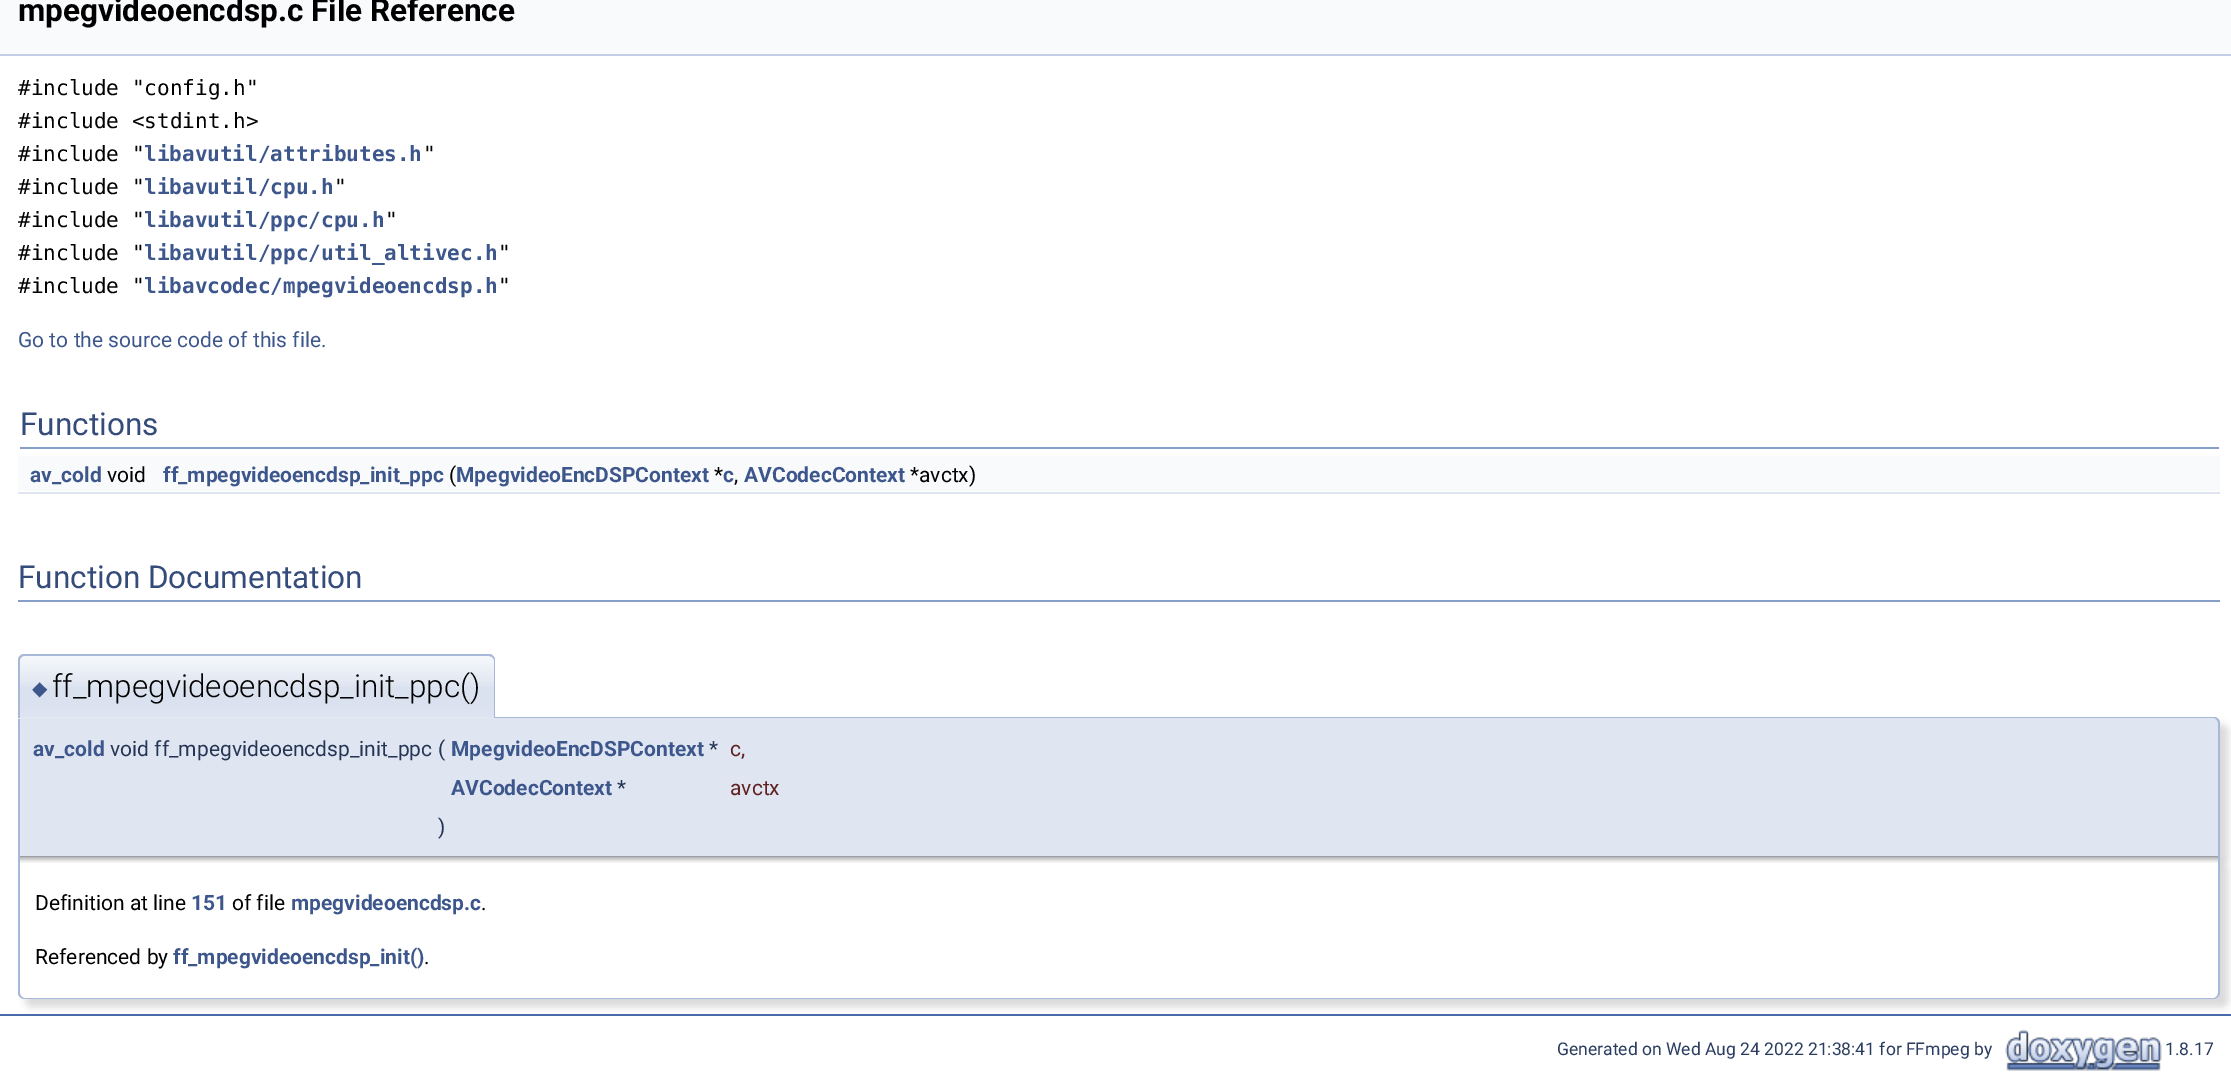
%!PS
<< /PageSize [2231 1073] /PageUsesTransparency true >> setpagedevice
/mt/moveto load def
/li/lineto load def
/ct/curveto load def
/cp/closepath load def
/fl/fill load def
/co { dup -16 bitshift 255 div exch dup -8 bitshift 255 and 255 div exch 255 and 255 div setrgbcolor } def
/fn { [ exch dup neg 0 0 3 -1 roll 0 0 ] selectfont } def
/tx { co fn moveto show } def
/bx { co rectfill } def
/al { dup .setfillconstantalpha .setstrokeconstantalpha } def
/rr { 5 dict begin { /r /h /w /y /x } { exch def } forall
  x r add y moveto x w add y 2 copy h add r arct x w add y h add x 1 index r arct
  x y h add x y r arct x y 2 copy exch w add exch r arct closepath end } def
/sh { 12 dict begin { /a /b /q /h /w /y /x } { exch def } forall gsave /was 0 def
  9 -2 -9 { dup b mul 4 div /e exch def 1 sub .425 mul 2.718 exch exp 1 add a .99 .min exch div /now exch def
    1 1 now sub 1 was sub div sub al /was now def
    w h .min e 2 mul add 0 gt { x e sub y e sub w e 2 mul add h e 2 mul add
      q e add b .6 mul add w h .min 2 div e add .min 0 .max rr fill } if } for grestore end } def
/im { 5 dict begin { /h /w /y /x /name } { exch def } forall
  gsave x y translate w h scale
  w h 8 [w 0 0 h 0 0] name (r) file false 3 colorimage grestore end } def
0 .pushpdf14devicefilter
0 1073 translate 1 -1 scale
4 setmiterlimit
0 0 2231 1073 16#FFFFFF bx
0 0 2231 54 16#F9FAFC bx
0 54 2231 2 16#C4CFE5 bx
20 447 2199 2 16#879ECB bx
18 456 2202 35 16#F9FAFC bx
18 492 2202 2 16#DEE4F0 bx
18 600 2202 2 16#879ECB bx
16#000000 co
26 725 2202 139 6 4 .15 sh
16#DFE5F1 co
18 717 mt 2214 717 li 2217.5 717 2220 719.5 2220 723 ct 2220 857 li 18 857 li cp fl
16#A8B8D9 co
18 717 mt 2214 717 li 2217 717 2220 720 2220 723 ct 2220 856 li 18 856 li cp 20 718 mt 2214 718 li 2216 718 2218 721 2218 723 ct 2218 856 li 20 856 li cp eofill
16#E2E8F2 co
24 654 mt 489 654 li 492.5 654 495 656.5 495 660 ct 495 719 li 18 719 li 18 660 li 18 656.5 20.5 654 24 654 ct cp fl
(media/1.raw) 18 655 477 62 im
16#A8B8D9 co
24 654 mt 489 654 li 492 654 495 657 495 660 ct 495 718 li 18 718 li 18 660 li 18 657 21 654 24 654 ct cp 24 656 mt 489 656 li 491 656 494 658 494 660 ct 494 718 li 20 718 li 20 660 li 20 658 22 656 24 656 ct cp eofill
16#000000 co
26 864 2202 143 6 4 .15 sh
16#FFFFFF co
18 857 mt 2220 857 li 2220 993 li 2220 996.5 2217.5 999 2214 999 ct 24 999 li 20.5 999 18 996.5 18 993 ct cp fl
(media/2.raw) 20 856 2198 7 im
16#A8B8D9 co
18 856 mt 2220 856 li 2220 993 li 2220 996 2217 999 2214 999 ct 24 999 li 21 999 18 996 18 993 ct cp 20 856 mt 2218 856 li 2218 993 li 2218 995 2216 998 2214 998 ct 24 998 li 22 998 20 995 20 993 ct cp eofill
0 1014 2231 2 16#4A6AAA bx
(media/3.raw) 2005 1029 157 42 im
(mpegvideoencdsp.c File Reference) 18 21 /Roboto-Bold 31.5 16#000000 tx
(#include "config.h") 18 95 /DejaVuSansMono-Regular 21 16#000000 tx
(#include <stdint.h>) 18 128 /DejaVuSansMono-Regular 21 16#000000 tx
(#include ") 18 161 /DejaVuSansMono-Regular 21 16#000000 tx
(libavutil/attributes.h) 144 161 /DejaVuSansMono-Bold 21 16#3D578C tx
(") 423 161 /DejaVuSansMono-Regular 21 16#000000 tx
(#include ") 18 194 /DejaVuSansMono-Regular 21 16#000000 tx
(libavutil/cpu.h) 144 194 /DejaVuSansMono-Bold 21 16#3D578C tx
(") 334 194 /DejaVuSansMono-Regular 21 16#000000 tx
(#include ") 18 227 /DejaVuSansMono-Regular 21 16#000000 tx
(libavutil/ppc/cpu.h) 144 227 /DejaVuSansMono-Bold 21 16#3D578C tx
(") 385 227 /DejaVuSansMono-Regular 21 16#000000 tx
(#include ") 18 260 /DejaVuSansMono-Regular 21 16#000000 tx
(libavutil/ppc/util_altivec.h) 144 260 /DejaVuSansMono-Bold 21 16#3D578C tx
(") 498 260 /DejaVuSansMono-Regular 21 16#000000 tx
(#include ") 18 293 /DejaVuSansMono-Regular 21 16#000000 tx
(libavcodec/mpegvideoencdsp.h) 144 293 /DejaVuSansMono-Bold 21 16#3D578C tx
(") 498 293 /DejaVuSansMono-Regular 21 16#000000 tx
(Go to the source code of this file.) 18 347 /Roboto-Regular 21 16#3D578C tx
(Functions) 20 435 /Roboto-Regular 31.5 16#354C7B tx
(av_cold) 30 482 /Roboto-Bold 21 16#3D578C tx
(void) 107 482 /Roboto-Regular 21 16#000000 tx
(ff_mpegvideoencdsp_init_ppc) 163 482 /Roboto-Bold 21 16#3D578C tx
(\() 449 482 /Roboto-Regular 21 16#000000 tx
(MpegvideoEncDSPContext) 456 482 /Roboto-Bold 21 16#3D578C tx
(*) 714 482 /Roboto-Regular 21 16#000000 tx
(c) 723 482 /Roboto-Bold 21 16#3D578C tx
(,) 734 482 /Roboto-Regular 21 16#000000 tx
(AVCodecContext) 744 482 /Roboto-Bold 21 16#3D578C tx
(*avctx\)) 910 482 /Roboto-Regular 21 16#000000 tx
(Function Documentation) 18 588 /Roboto-Regular 31.5 16#354C7B tx
(◆) 32 695 /DejaVuSans-Regular 20 16#3D578C tx
(ff_mpegvideoencdsp_init_ppc\(\)) 52 697 /Roboto-Light 31.5 16#000000 tx
(av_cold) 33 756 /Roboto-Bold 21 16#3D578C tx
(void ff_mpegvideoencdsp_init_ppc) 110 756 /Roboto-Regular 21 16#253555 tx
(\() 438 756 /Roboto-Regular 21 16#253555 tx
(MpegvideoEncDSPContext) 451 756 /Roboto-Bold 21 16#3D578C tx
(*) 709 756 /Roboto-Regular 21 16#253555 tx
(c,) 730 756 /Roboto-Regular 21 16#602020 tx
(AVCodecContext) 451 795 /Roboto-Bold 21 16#3D578C tx
(*) 617 795 /Roboto-Regular 21 16#253555 tx
(avctx) 730 795 /Roboto-Regular 21 16#602020 tx
(\)) 438 834 /Roboto-Regular 21 16#253555 tx
(Definition at line) 35 910 /Roboto-Regular 21 16#000000 tx
(151) 191 910 /Roboto-Bold 21 16#3D578C tx
(of file) 232 910 /Roboto-Regular 21 16#000000 tx
(mpegvideoencdsp.c) 291 910 /Roboto-Bold 21 16#3D578C tx
(.) 481 910 /Roboto-Regular 21 16#000000 tx
(Referenced by) 35 964 /Roboto-Regular 21 16#000000 tx
(ff_mpegvideoencdsp_init\(\)) 173 964 /Roboto-Bold 21 16#3D578C tx
(.) 424 964 /Roboto-Regular 21 16#000000 tx
(Generated on Wed Aug 24 2022 21:38:41 for FFmpeg by) 1557 1055 /Roboto-Regular 17.5 16#2A3D61 tx
(1.8.17) 2165 1055 /Roboto-Regular 17.5 16#2A3D61 tx
.poppdf14devicefilter showpage
